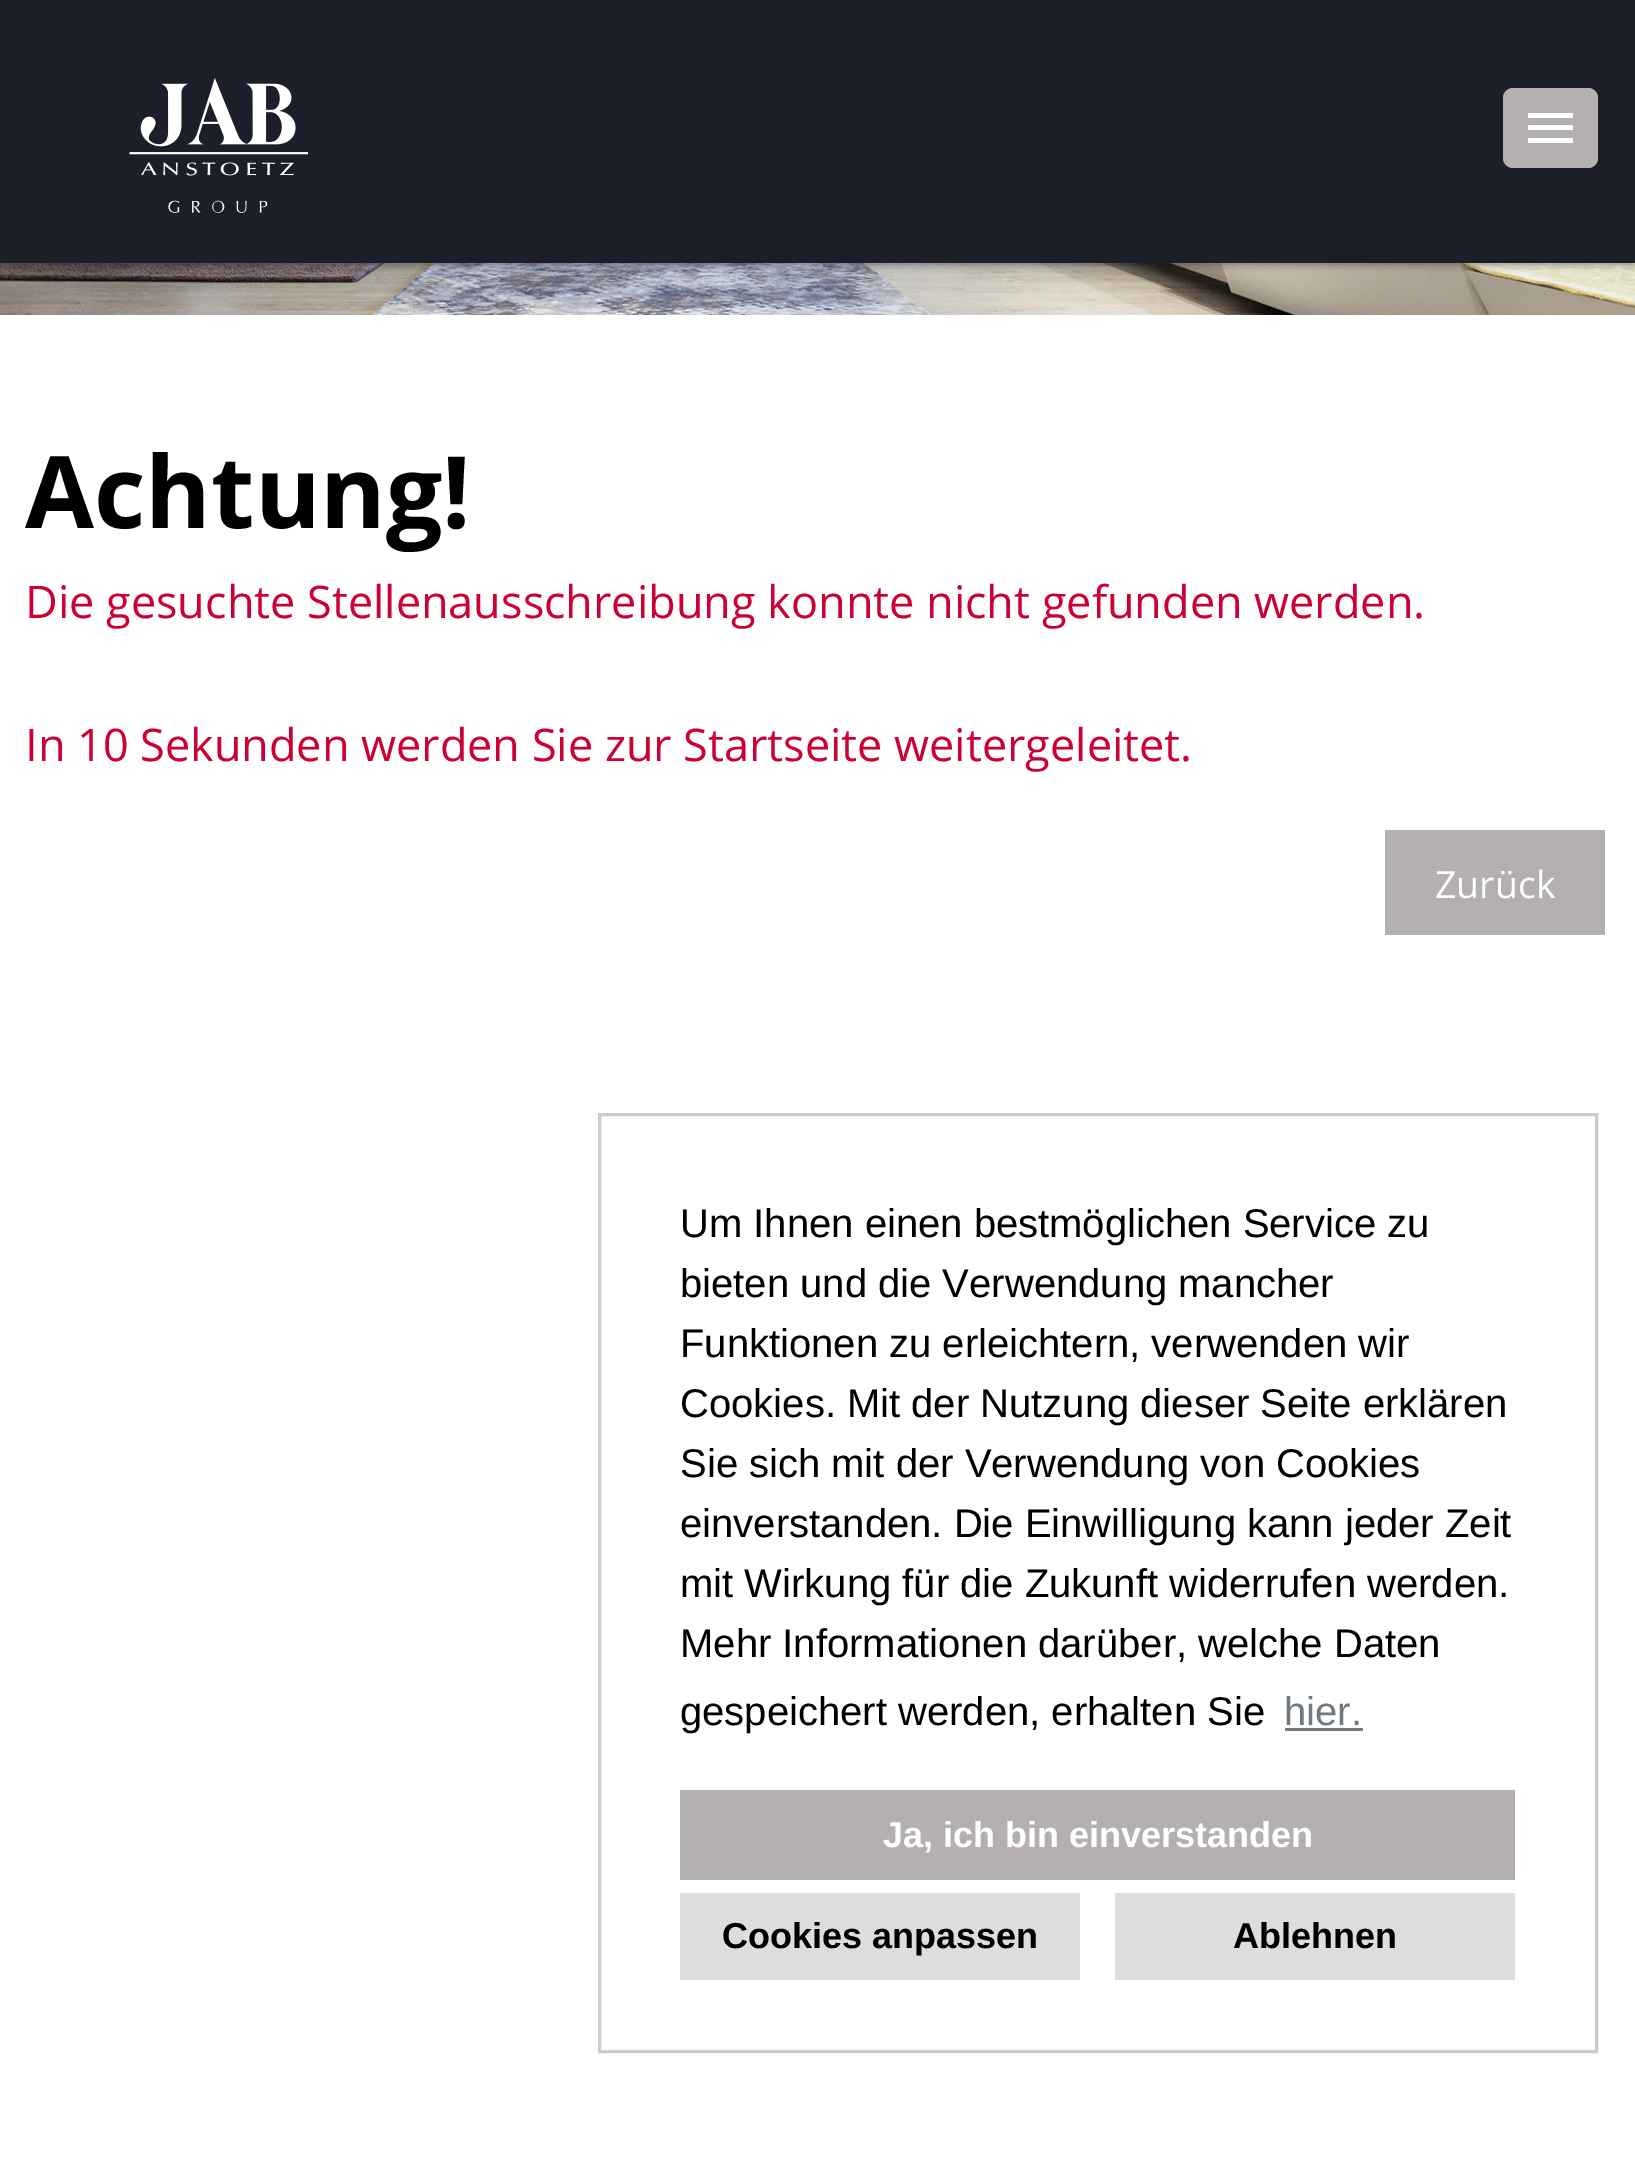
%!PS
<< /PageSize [1635 2164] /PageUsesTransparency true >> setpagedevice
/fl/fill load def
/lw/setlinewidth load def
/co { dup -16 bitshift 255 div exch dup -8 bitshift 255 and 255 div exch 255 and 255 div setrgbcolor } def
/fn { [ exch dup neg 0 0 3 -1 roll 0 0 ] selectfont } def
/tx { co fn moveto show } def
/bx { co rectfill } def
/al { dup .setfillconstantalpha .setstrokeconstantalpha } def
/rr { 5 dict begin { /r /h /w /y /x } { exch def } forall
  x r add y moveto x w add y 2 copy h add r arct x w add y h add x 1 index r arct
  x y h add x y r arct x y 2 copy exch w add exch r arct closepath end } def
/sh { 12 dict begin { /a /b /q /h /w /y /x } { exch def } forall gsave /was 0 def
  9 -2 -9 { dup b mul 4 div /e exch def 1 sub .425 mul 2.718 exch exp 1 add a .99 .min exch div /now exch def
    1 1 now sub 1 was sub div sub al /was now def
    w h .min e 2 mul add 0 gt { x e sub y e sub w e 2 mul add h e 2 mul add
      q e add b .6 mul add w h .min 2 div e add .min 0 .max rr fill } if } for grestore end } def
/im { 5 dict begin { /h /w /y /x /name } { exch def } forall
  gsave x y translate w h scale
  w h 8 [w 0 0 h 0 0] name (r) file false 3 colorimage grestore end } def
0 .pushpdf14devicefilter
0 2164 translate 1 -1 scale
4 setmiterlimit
0 0 1635 2164 16#FFFFFF bx
(media/2.raw) 0 263 1635 52 im
0.08 al
16#000000 co
3 lw
-.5 -.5 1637 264 rectstroke
1 al
0 5 1635 263 0 2.5 .16 sh
0 0 1635 263 16#1C1F2A bx
(media/1.raw) 129 78 180 135 im
16#B3B0AF co
1503 88 95 80 10 rr fl
1528 113 45 5 16#FFFFFF bx
1528 125 45 5 16#FFFFFF bx
1528 138 45 5 16#FFFFFF bx
1385 830 220 105 16#B3B0AF bx
16#CCCCCC co
599.5 1114.5 997 937 rectstroke
1285 1728 78 3 16#6F797F bx
680 1790 835 90 16#B3B0AF bx
680 1893 400 87 16#DDDDDD bx
1115 1893 400 87 16#DDDDDD bx
(Achtung!) 25 528 /OpenSans-Bold 100 16#000000 tx
(Die gesuchte Stellenausschreibung konnte nicht gefunden werden.) 25 618 /OpenSans-Regular 45 16#CC0033 tx
(In 10 Sekunden werden Sie zur Startseite weitergeleitet.) 25 761 /OpenSans-Regular 45 16#CC0033 tx
(Zurück) 1435 898 /OpenSans-Regular 37.5 16#FFFFFF tx
(Um Ihnen einen bestmöglichen Service zu) 680 1237 /LiberationSans-Regular 40 16#000000 tx
(bieten und die Verwendung mancher) 680 1297 /LiberationSans-Regular 40 16#000000 tx
(Funktionen zu erleichtern, verwenden wir) 680 1357 /LiberationSans-Regular 40 16#000000 tx
(Cookies. Mit der Nutzung dieser Seite erklären) 680 1417 /LiberationSans-Regular 40 16#000000 tx
(Sie sich mit der Verwendung von Cookies) 680 1477 /LiberationSans-Regular 40 16#000000 tx
(einverstanden. Die Einwilligung kann jeder Zeit) 680 1537 /LiberationSans-Regular 40 16#000000 tx
(mit Wirkung für die Zukunft widerrufen werden.) 680 1597 /LiberationSans-Regular 40 16#000000 tx
(Mehr Informationen darüber, welche Daten) 680 1657 /LiberationSans-Regular 40 16#000000 tx
(gespeichert werden, erhalten Sie) 680 1725 /LiberationSans-Regular 40 16#000000 tx
(hier.) 1284 1725 /LiberationSans-Regular 40 16#6F797F tx
(Ja, ich bin einverstanden) 883 1847 /LiberationSans-Bold 36 16#FFFFFF tx
(Cookies anpassen) 722 1948 /LiberationSans-Bold 36 16#000000 tx
(Ablehnen) 1233 1948 /LiberationSans-Bold 36 16#000000 tx
.poppdf14devicefilter showpage
